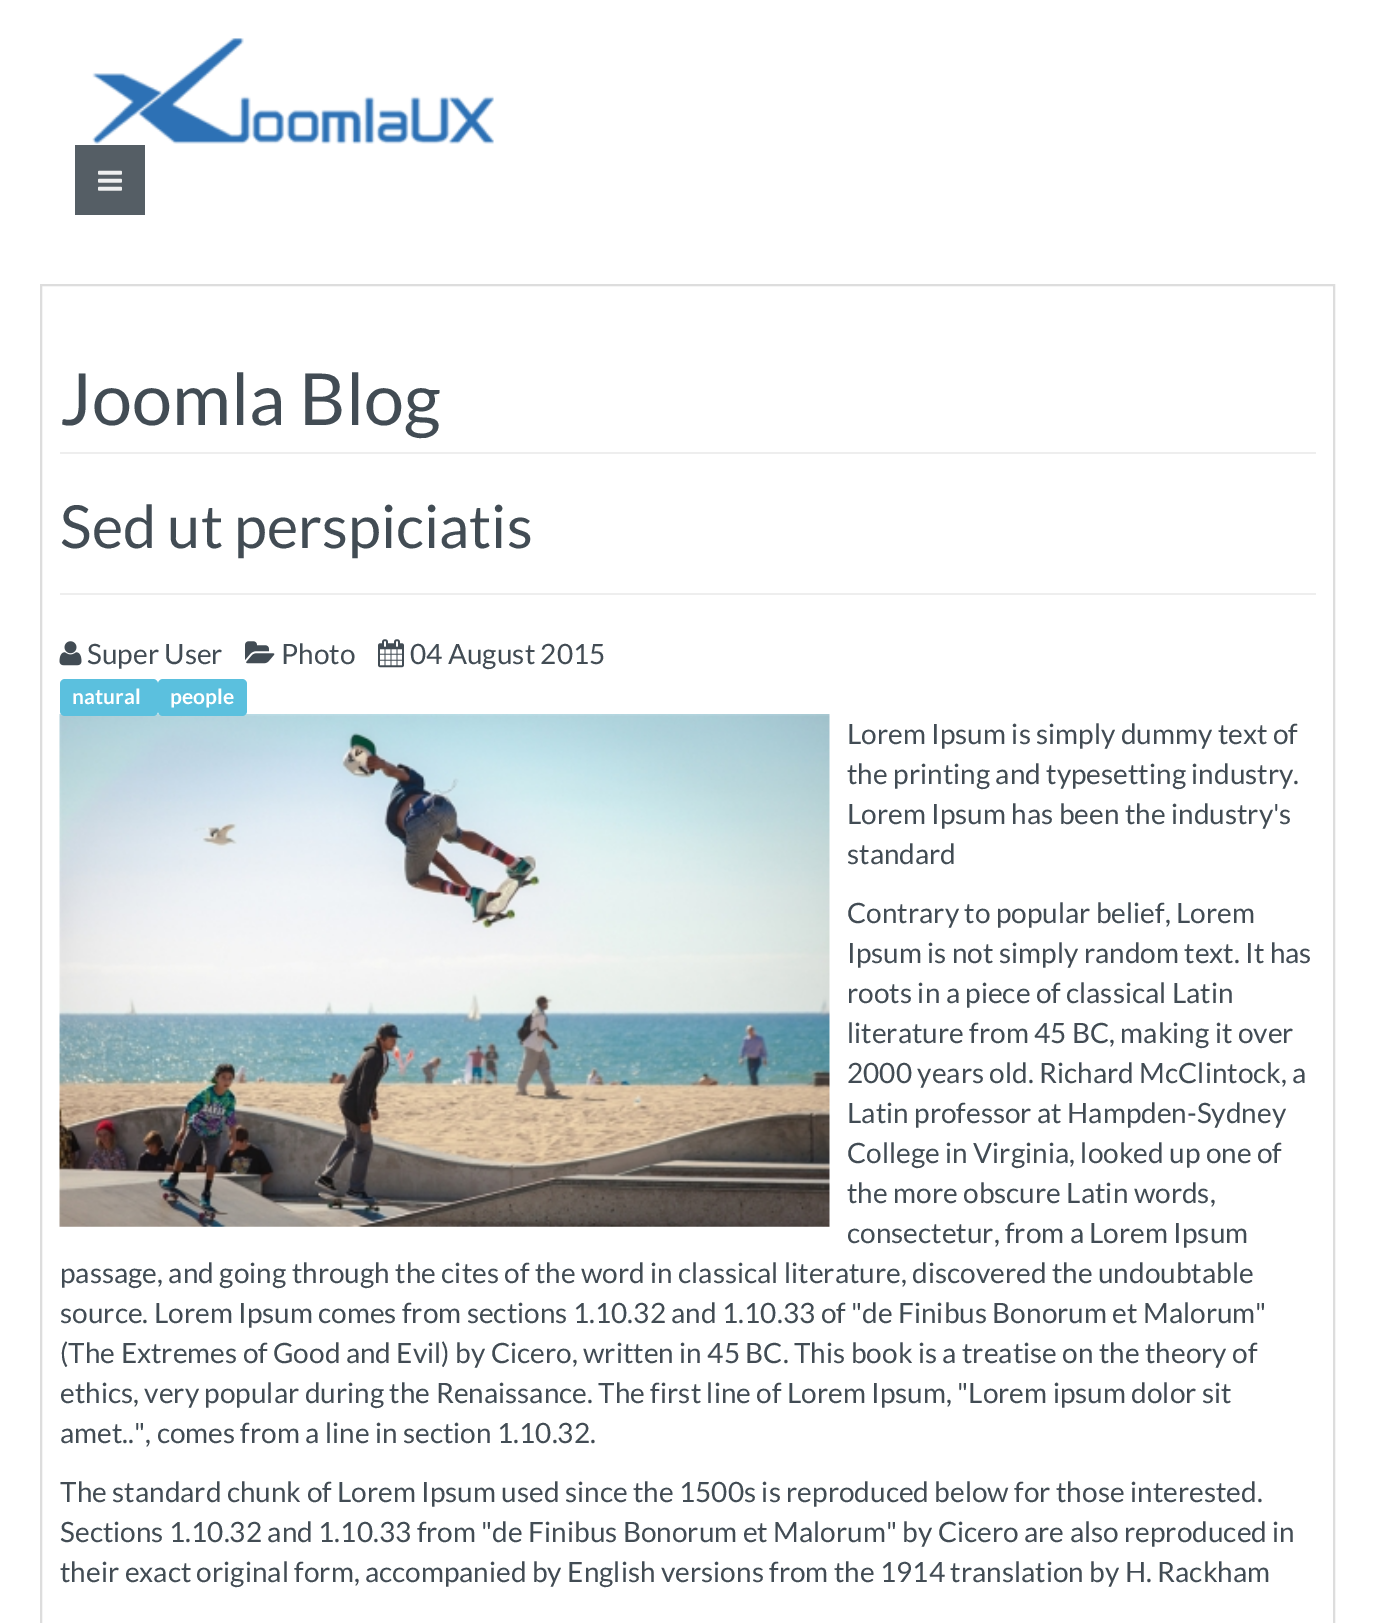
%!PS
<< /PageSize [1374 1623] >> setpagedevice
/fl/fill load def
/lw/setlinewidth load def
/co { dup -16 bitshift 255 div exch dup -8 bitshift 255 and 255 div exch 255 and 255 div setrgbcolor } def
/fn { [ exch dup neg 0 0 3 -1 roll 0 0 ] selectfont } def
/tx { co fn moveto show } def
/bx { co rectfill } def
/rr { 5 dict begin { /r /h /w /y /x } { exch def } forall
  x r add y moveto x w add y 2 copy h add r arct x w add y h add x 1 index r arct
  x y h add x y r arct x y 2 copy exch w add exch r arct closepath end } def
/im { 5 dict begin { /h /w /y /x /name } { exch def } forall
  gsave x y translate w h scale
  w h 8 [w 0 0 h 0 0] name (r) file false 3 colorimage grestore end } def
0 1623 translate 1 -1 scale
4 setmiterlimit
0 0 1374 1623 16#FFFFFF bx
(media/1.raw) 92 38 402 106 im
75 145 70 70 16#555E65 bx
(media/2.raw) 98 170 24 21 im
16#DDDDDD co
2 lw
41 285 1293 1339 rectstroke
60 452 1256 2 16#EEEEEE bx
60 593 1256 2 16#EEEEEE bx
(media/3.raw) 59 641 23 25 im
(media/4.raw) 245 641 30 23 im
(media/5.raw) 378 639 26 29 im
(media/6.raw) 59 714 771 513 im
16#5BC0DE co
60 679 98 37 5 rr fl
158 679 89 37 5 rr fl
(Joomla Blog) 60 425 /Lato-Regular 71.75 16#424C54 tx
(Sed ut perspiciatis) 60 548 /Lato-Regular 59.5 16#424C54 tx
(Super User) 87 664 /Lato-Regular 28 16#424C54 tx
(Photo) 281 664 /Lato-Regular 28 16#424C54 tx
(04 August 2015) 410 664 /Lato-Regular 28 16#424C54 tx
(natural) 72 704 /Lato-Bold 21 16#FFFFFF tx
(people) 170 704 /Lato-Bold 21 16#FFFFFF tx
(Lorem Ipsum is simply dummy text of) 847 744 /Lato-Regular 28 16#424C54 tx
(the printing and typesetting industry.) 847 784 /Lato-Regular 28 16#424C54 tx
(Lorem Ipsum has been the industry's) 847 824 /Lato-Regular 28 16#424C54 tx
(standard) 847 864 /Lato-Regular 28 16#424C54 tx
(Contrary to popular belief, Lorem) 847 923 /Lato-Regular 28 16#424C54 tx
(Ipsum is not simply random text. It has) 847 963 /Lato-Regular 28 16#424C54 tx
(roots in a piece of classical Latin) 847 1003 /Lato-Regular 28 16#424C54 tx
(literature from 45 BC, making it over) 847 1043 /Lato-Regular 28 16#424C54 tx
(2000 years old. Richard McClintock, a) 847 1083 /Lato-Regular 28 16#424C54 tx
(Latin professor at Hampden-Sydney) 847 1123 /Lato-Regular 28 16#424C54 tx
(College in Virginia, looked up one of) 847 1163 /Lato-Regular 28 16#424C54 tx
(the more obscure Latin words,) 847 1203 /Lato-Regular 28 16#424C54 tx
(consectetur, from a Lorem Ipsum) 847 1243 /Lato-Regular 28 16#424C54 tx
(passage, and going through the cites of the word in classical literature, discovered the undoubtable) 60 1283 /Lato-Regular 28 16#424C54 tx
(source. Lorem Ipsum comes from sections 1.10.32 and 1.10.33 of "de Finibus Bonorum et Malorum") 60 1323 /Lato-Regular 28 16#424C54 tx
(\(The Extremes of Good and Evil\) by Cicero, written in 45 BC. This book is a treatise on the theory of) 60 1363 /Lato-Regular 28 16#424C54 tx
(ethics, very popular during the Renaissance. The first line of Lorem Ipsum, "Lorem ipsum dolor sit) 60 1403 /Lato-Regular 28 16#424C54 tx
(amet..", comes from a line in section 1.10.32.) 60 1443 /Lato-Regular 28 16#424C54 tx
(The standard chunk of Lorem Ipsum used since the 1500s is reproduced below for those interested.) 60 1502 /Lato-Regular 28 16#424C54 tx
(Sections 1.10.32 and 1.10.33 from "de Finibus Bonorum et Malorum" by Cicero are also reproduced in) 60 1542 /Lato-Regular 28 16#424C54 tx
(their exact original form, accompanied by English versions from the 1914 translation by H. Rackham) 60 1582 /Lato-Regular 28 16#424C54 tx
showpage
